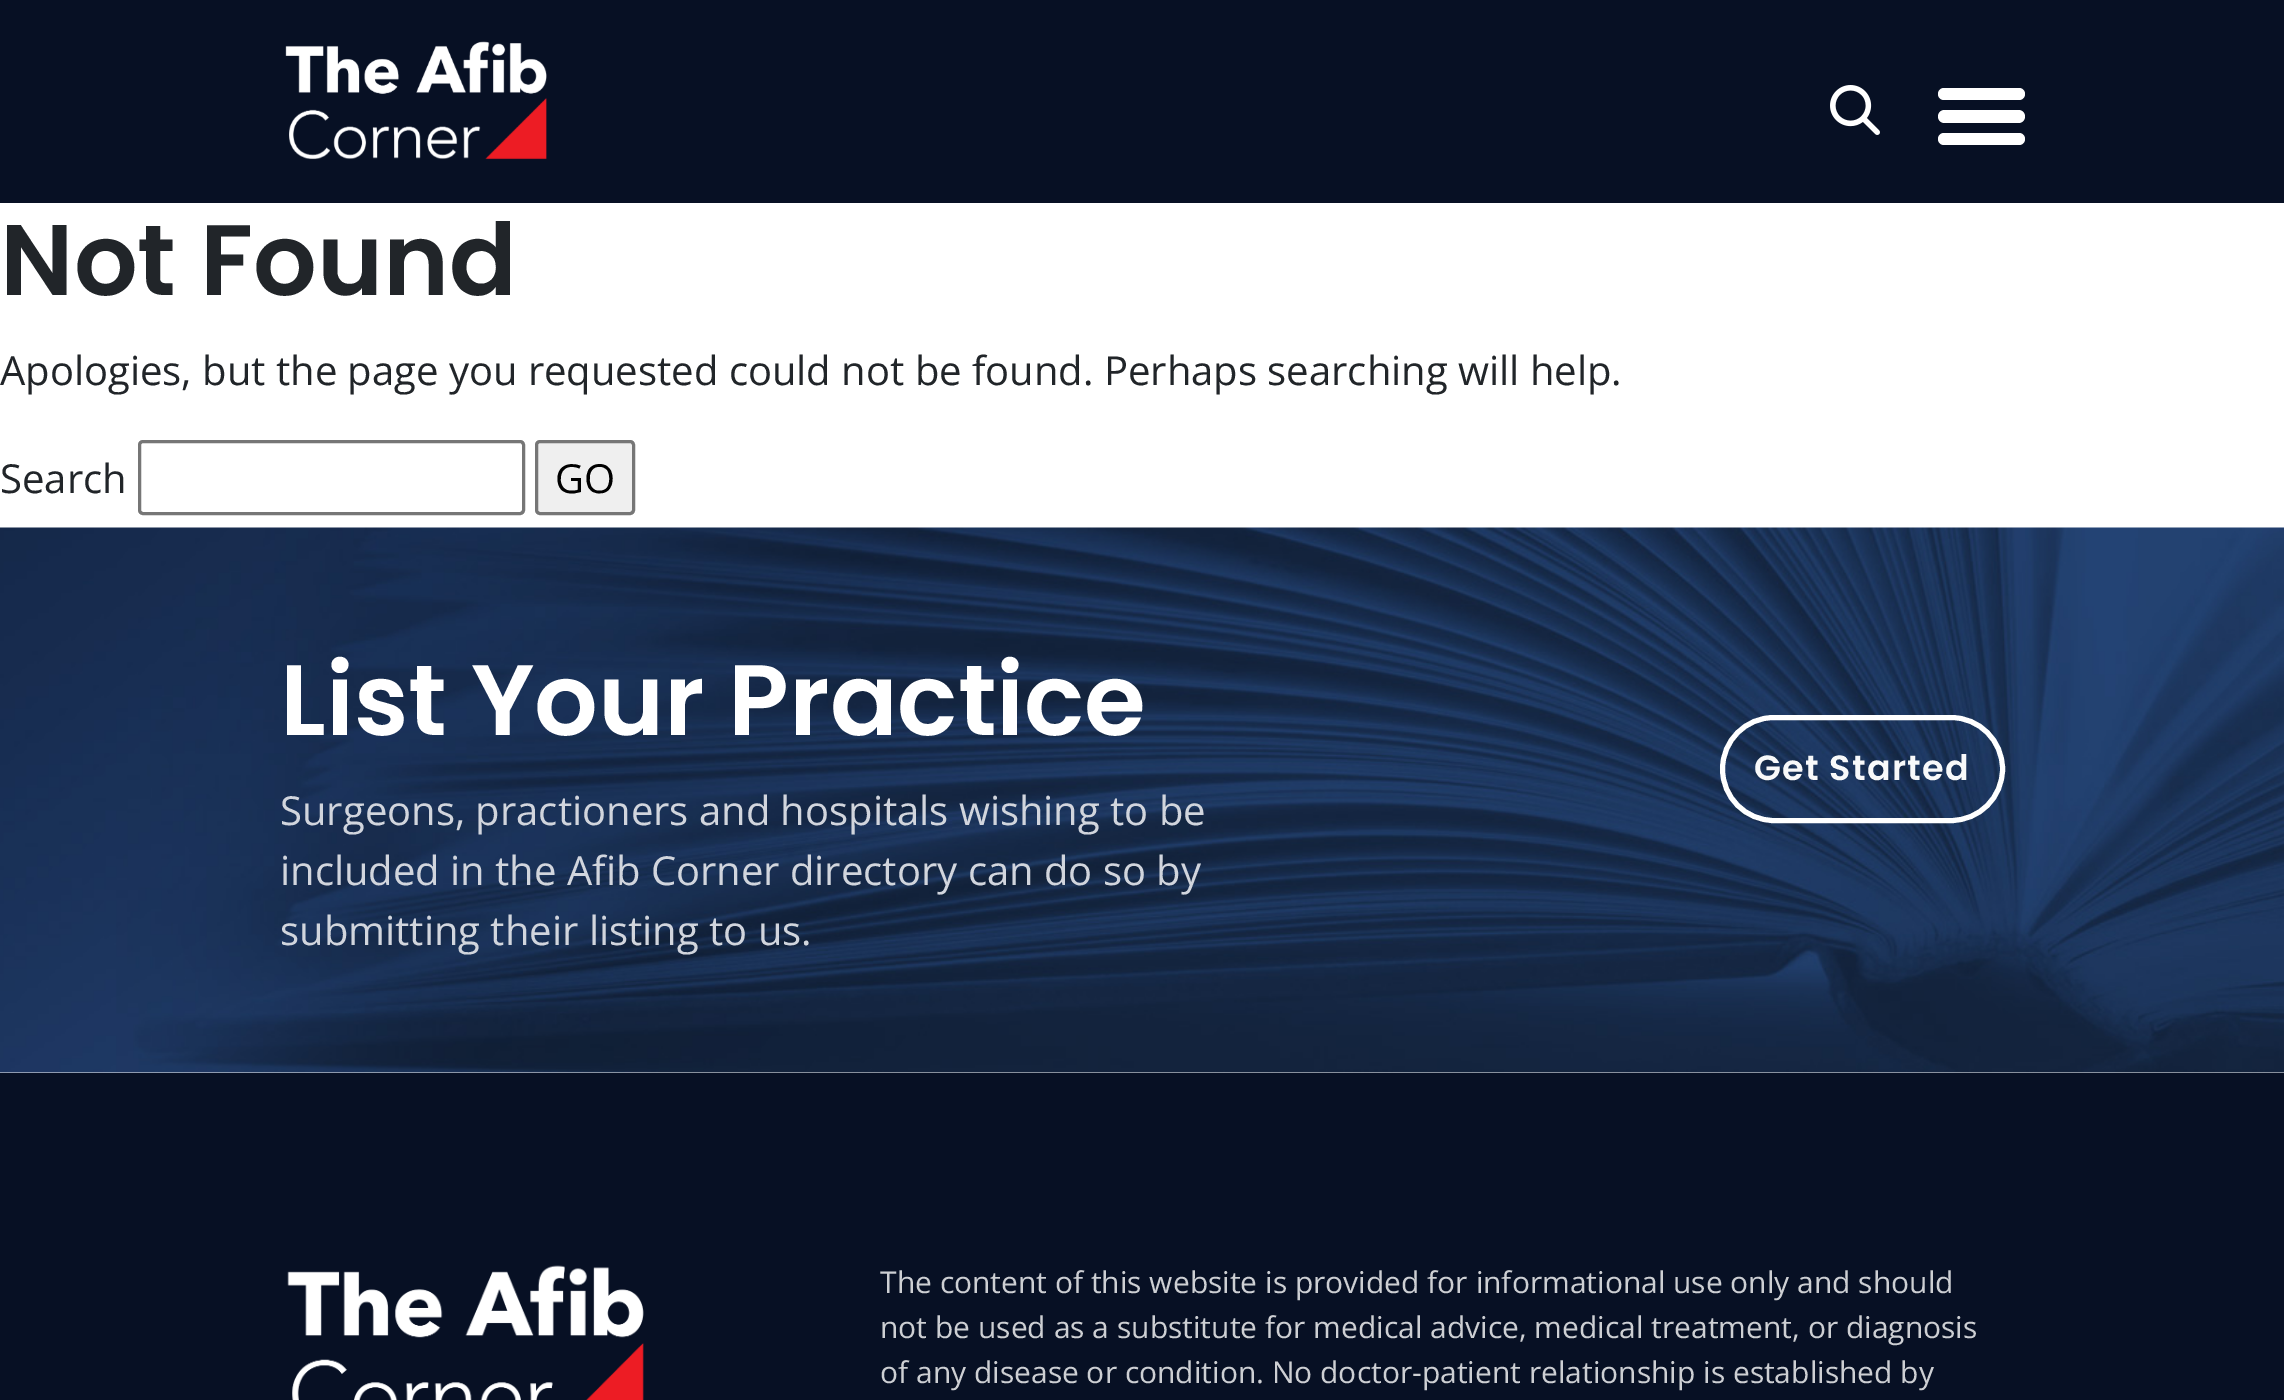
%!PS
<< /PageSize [2284 1400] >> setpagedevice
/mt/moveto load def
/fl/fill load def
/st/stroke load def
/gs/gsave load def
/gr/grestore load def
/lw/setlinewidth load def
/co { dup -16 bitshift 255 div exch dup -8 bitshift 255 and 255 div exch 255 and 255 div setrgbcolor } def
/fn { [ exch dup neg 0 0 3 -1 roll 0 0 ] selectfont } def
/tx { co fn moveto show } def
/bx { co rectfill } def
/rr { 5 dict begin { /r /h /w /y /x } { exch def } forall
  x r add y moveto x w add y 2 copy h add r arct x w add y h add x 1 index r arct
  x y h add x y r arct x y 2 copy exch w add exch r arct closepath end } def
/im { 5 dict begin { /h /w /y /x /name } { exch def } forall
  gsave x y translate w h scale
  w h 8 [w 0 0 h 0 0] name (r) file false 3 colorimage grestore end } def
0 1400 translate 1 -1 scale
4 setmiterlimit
0 0 2284 1400 16#FFFFFF bx
0 0 2284 203 16#071024 bx
(media/1.raw) 285 41 262 119 im
(media/2.raw) 1830 85 50 50 im
16#FFFFFF co
1938 88 87 12 6 rr fl
1938 110 87 13 6.5 rr fl
1938 133 87 12 6 rr fl
16#767676 co
3 lw
139.5 441.5 384 72 3.5 rr st
16#EFEFEF co
536.5 441.5 97 72 3.5 rr gs fl gr
16#767676 co
st
(media/3.raw) 0 527 2284 546 im
16#FFFFFF co
5 lw
1722.5 717.5 280 103 51.5 rr st
0 1073 2284 327 16#071024 bx
(media/4.raw) 287 1265 357 135 im
(Not Found) 0 295 /Poppins-SemiBold 100 16#212529 tx
(Apologies, but the page you requested could not be found. Perhaps searching will help.) 0 385 /OpenSans-Regular 40 16#212529 tx
(Search) 0 493 /OpenSans-Regular 40 16#212529 tx
(GO) 555 493 /OpenSans-Regular 40 16#000000 tx
(List Your Practice) 280 735 /Poppins-SemiBold 100 16#FFFFFF tx
(Surgeons, practioners and hospitals wishing to be) 280 825 /OpenSans-Regular 40 16#D1D5DD tx
(included in the Afib Corner directory can do so by) 280 885 /OpenSans-Regular 40 16#D1D5DD tx
(submitting their listing to us.) 280 945 /OpenSans-Regular 40 16#D1D5DD tx
/Poppins-SemiBold 35 fn
16#F8F9FA co
1754 780 mt 1.25 0 (Get Started) ashow
(The content of this website is provided for informational use only and should) 880 1293 /OpenSans-Regular 30 16#CDCFD3 tx
(not be used as a substitute for medical advice, medical treatment, or diagnosis) 880 1338 /OpenSans-Regular 30 16#CDCFD3 tx
(of any disease or condition. No doctor-patient relationship is established by) 880 1383 /OpenSans-Regular 30 16#CDCFD3 tx
showpage
